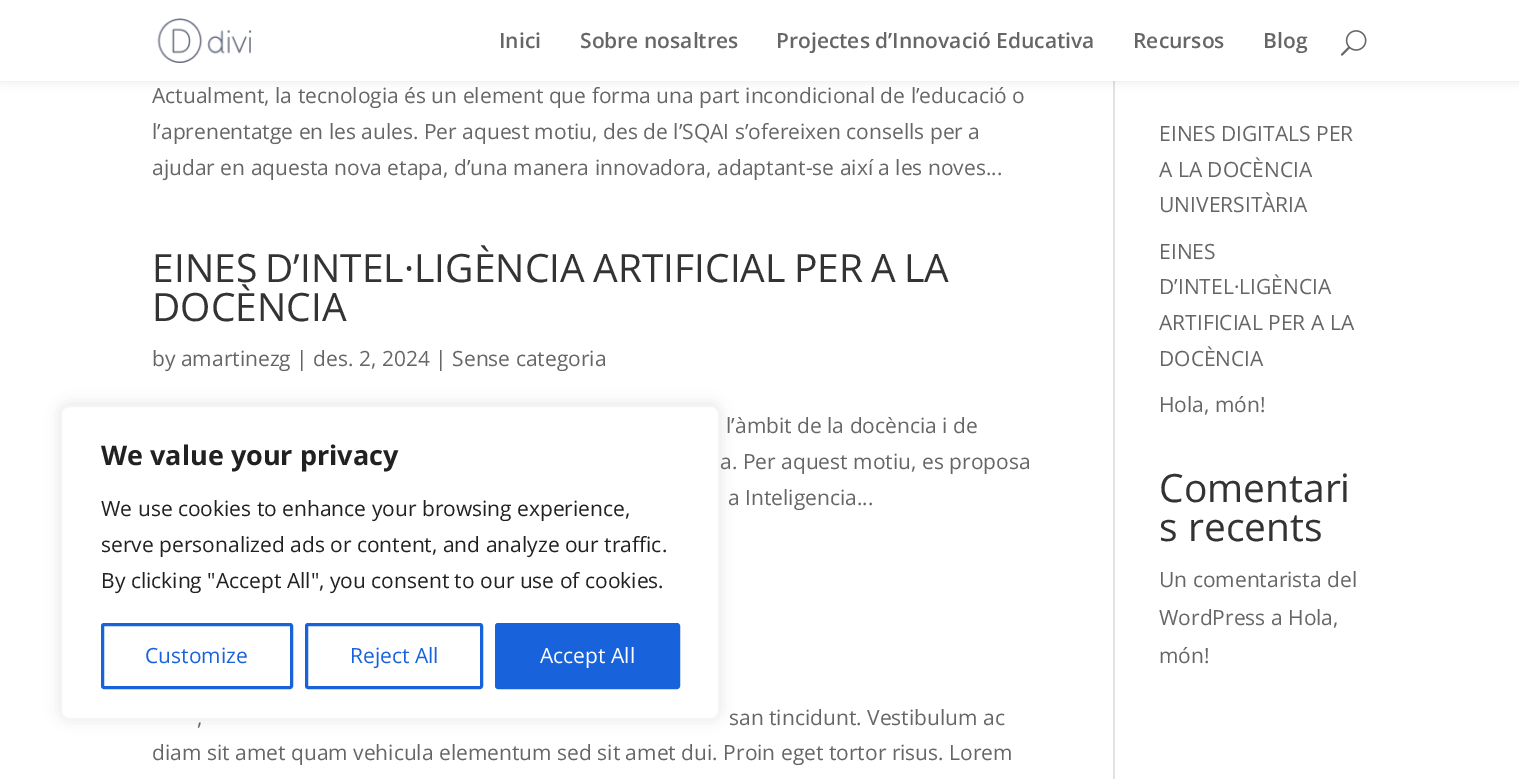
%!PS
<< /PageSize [1519 779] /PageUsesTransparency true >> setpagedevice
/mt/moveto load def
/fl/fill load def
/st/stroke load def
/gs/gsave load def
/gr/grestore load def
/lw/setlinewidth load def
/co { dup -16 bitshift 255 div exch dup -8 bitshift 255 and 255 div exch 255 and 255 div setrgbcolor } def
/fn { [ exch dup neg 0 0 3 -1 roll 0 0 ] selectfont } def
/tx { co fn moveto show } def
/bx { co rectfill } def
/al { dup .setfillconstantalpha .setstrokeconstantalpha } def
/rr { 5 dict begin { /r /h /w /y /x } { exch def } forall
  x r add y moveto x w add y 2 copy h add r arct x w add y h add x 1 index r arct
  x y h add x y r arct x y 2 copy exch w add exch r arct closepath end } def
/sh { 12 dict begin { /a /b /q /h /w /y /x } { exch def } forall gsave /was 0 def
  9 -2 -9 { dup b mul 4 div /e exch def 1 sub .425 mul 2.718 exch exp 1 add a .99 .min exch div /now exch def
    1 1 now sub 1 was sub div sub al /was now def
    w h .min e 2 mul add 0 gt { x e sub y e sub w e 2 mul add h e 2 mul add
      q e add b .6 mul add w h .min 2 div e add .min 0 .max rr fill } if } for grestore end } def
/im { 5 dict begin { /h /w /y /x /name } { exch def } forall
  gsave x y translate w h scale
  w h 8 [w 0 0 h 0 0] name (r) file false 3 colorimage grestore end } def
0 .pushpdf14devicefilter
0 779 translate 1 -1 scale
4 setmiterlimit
0 0 1519 779 16#FFFFFF bx
1113 81 2 698 16#E2E2E2 bx
16#000000 co
0 0 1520 81 0 5 .1 sh
0 0 1519 81 16#FFFFFF bx
(media/1.raw) 157 18 95 45 im
(media/2.raw) 1340 30 27 26 im
16#ACABAB co
60 404 660 315 9 7.5 .3 sh
16#FFFFFF co
61 406 658 313 8 rr gs fl gr
16#F4F4F4 co
2 lw
st
16#1863DC co
3 lw
102.5 624.5 189 63 1.5 rr st
306.5 624.5 175 63 1.5 rr st
496.5 624.5 182 63 1.5 rr gs fl gr
st
(Inici) 499 48 /OpenSans-SemiBold 21 16#666666 tx
(Sobre nosaltres) 580 48 /OpenSans-SemiBold 21 16#666666 tx
(Projectes d’Innovació Educativa) 776 48 /OpenSans-SemiBold 21 16#666666 tx
(Recursos) 1133 48 /OpenSans-SemiBold 21 16#666666 tx
(Blog) 1263 48 /OpenSans-SemiBold 21 16#666666 tx
(Actualment, la tecnologia és un element que forma una part incondicional de l’educació o) 152 103 /OpenSans-Regular 21 16#666666 tx
(l’aprenentatge en les aules. Per aquest motiu, des de l’SQAI s’ofereixen consells per a) 152 139 /OpenSans-Regular 21 16#666666 tx
(ajudar en aquesta nova etapa, d’una manera innovadora, adaptant-se així a les noves...) 152 175 /OpenSans-Regular 21 16#666666 tx
/OpenSans-Regular 39 fn
16#333333 co
152 282 mt -2 0 32 (EINES D’INTEL·LIGÈNCIA ARTIFICIAL PER A LA) widthshow
(DOCÈNCIA) 152 321 /OpenSans-Regular 39 16#333333 tx
(by amartinezg | des. 2, 2024 | Sense categoria) 152 366 /OpenSans-Regular 21 16#666666 tx
(l’àmbit de la docència i de) 726 433 /OpenSans-Regular 21 16#666666 tx
(a. Per aquest motiu, es proposa) 720 469 /OpenSans-Regular 21 16#666666 tx
(a Inteligencia...) 728 505 /OpenSans-Regular 21 16#666666 tx
(,) 197 725 /OpenSans-Regular 21 16#666666 tx
(san tincidunt. Vestibulum ac) 729 725 /OpenSans-Regular 21 16#666666 tx
(diam sit amet quam vehicula elementum sed sit amet dui. Proin eget tortor risus. Lorem) 152 760 /OpenSans-Regular 21 16#666666 tx
(EINES DIGITALS PER) 1159 141 /OpenSans-Regular 21 16#666666 tx
(A LA DOCÈNCIA) 1159 177 /OpenSans-Regular 21 16#666666 tx
(UNIVERSITÀRIA) 1159 212 /OpenSans-Regular 21 16#666666 tx
(EINES) 1159 259 /OpenSans-Regular 21 16#666666 tx
(D’INTEL·LIGÈNCIA) 1159 294 /OpenSans-Regular 21 16#666666 tx
(ARTIFICIAL PER A LA) 1159 330 /OpenSans-Regular 21 16#666666 tx
(DOCÈNCIA) 1159 366 /OpenSans-Regular 21 16#666666 tx
(Hola, món!) 1159 412 /OpenSans-Regular 21 16#666666 tx
(Comentari) 1159 502 /OpenSans-Regular 39 16#333333 tx
(s recents) 1159 541 /OpenSans-Regular 39 16#333333 tx
(Un comentarista del) 1159 587 /OpenSans-Regular 21 16#666666 tx
(WordPress a Hola,) 1159 625 /OpenSans-Regular 21 16#666666 tx
(món!) 1159 663 /OpenSans-Regular 21 16#666666 tx
(We value your privacy) 101 465 /OpenSans-Bold 27 16#212121 tx
(We use cookies to enhance your browsing experience,) 101 516 /OpenSans-Regular 21 16#212121 tx
(serve personalized ads or content, and analyze our traffic.) 101 552 /OpenSans-Regular 21 16#212121 tx
(By clicking "Accept All", you consent to our use of cookies.) 101 588 /OpenSans-Regular 21 16#212121 tx
(Customize) 145 663 /OpenSans-Regular 21 16#1863DC tx
(Reject All) 350 663 /OpenSans-Regular 21 16#1863DC tx
(Accept All) 540 663 /OpenSans-Regular 21 16#FFFFFF tx
.poppdf14devicefilter showpage
